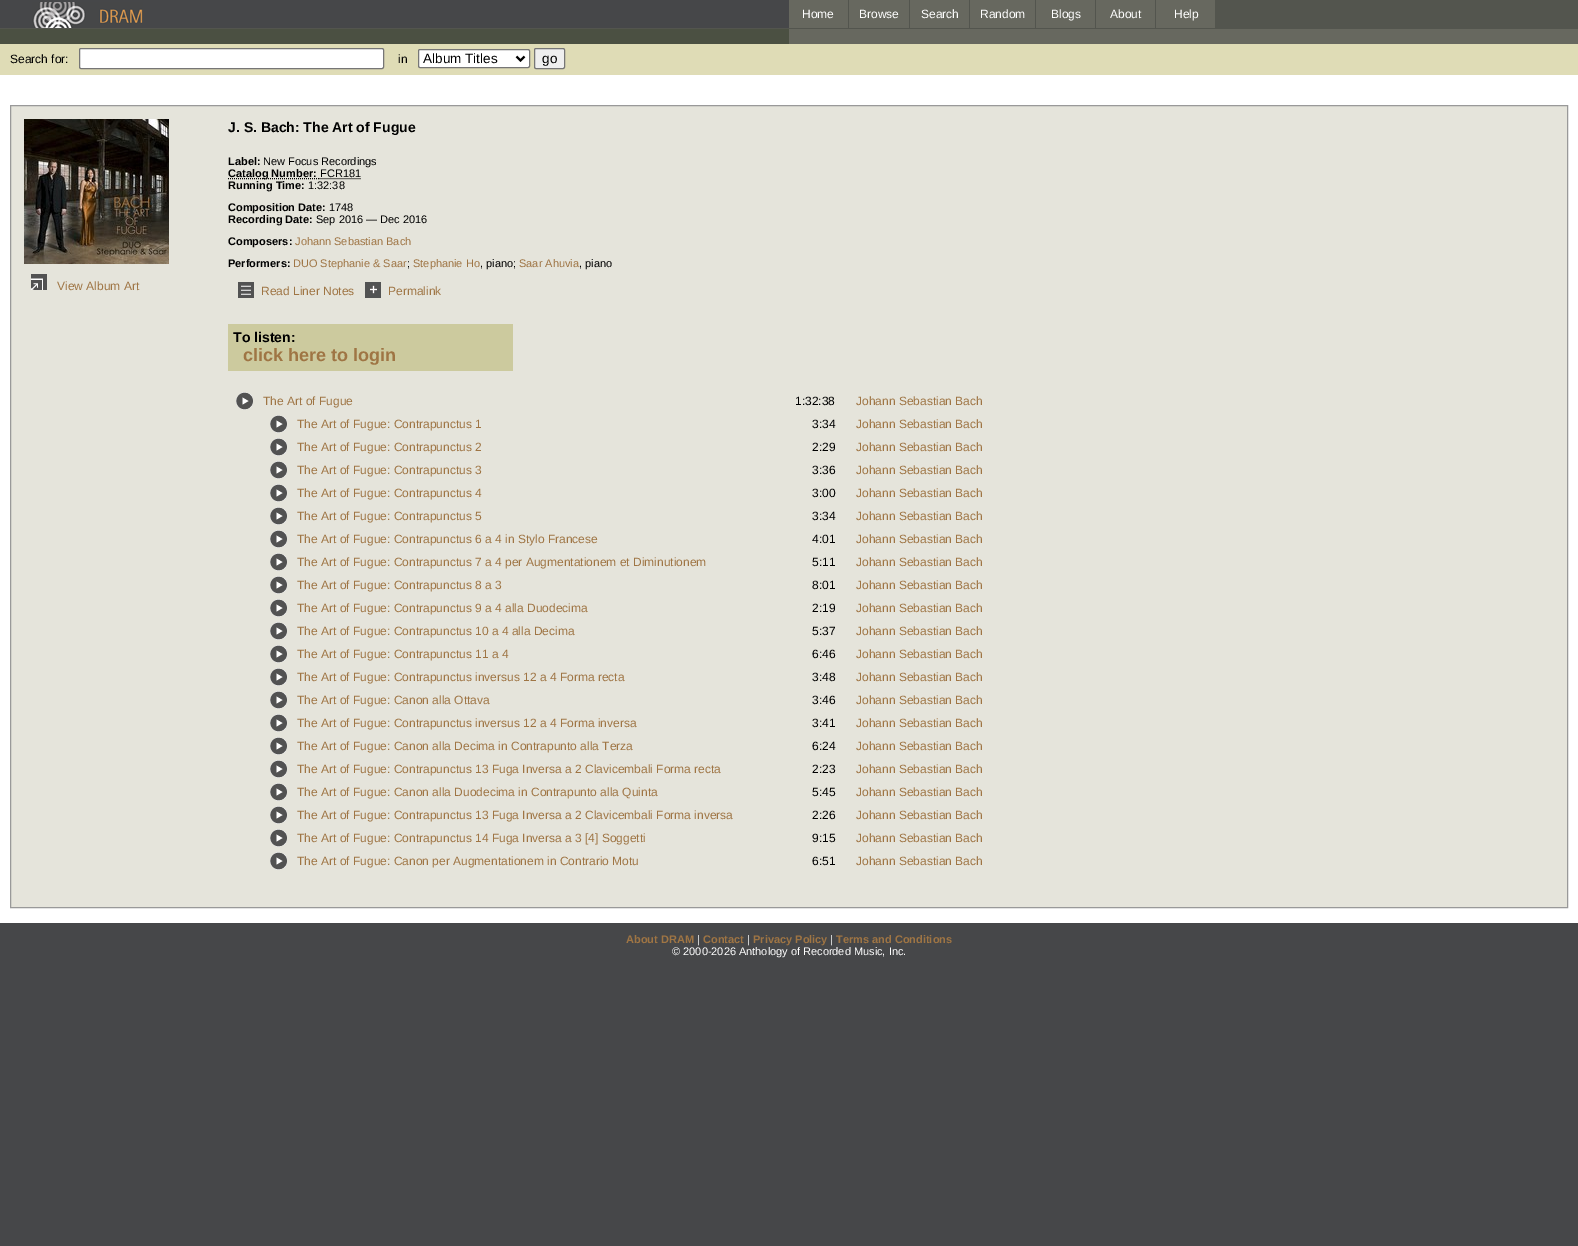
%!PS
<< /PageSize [1578 1246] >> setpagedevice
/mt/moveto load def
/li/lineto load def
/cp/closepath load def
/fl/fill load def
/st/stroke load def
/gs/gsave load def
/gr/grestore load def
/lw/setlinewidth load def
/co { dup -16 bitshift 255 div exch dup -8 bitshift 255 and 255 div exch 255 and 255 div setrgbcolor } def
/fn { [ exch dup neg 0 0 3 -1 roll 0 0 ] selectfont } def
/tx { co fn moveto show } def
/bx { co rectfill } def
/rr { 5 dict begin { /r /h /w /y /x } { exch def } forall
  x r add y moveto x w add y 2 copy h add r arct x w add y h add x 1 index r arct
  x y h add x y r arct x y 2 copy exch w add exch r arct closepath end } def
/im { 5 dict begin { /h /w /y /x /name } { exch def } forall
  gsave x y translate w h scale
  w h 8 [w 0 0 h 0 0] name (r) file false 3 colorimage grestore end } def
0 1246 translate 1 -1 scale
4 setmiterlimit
0 0 1578 1246 16#464749 bx
(media/1.raw) 32 2 111 26 im
848 0 730 28 16#53554E bx
789 0 59 28 16#67685F bx
849 0 60 28 16#67685F bx
910 0 59 28 16#67685F bx
970 0 65 28 16#67685F bx
1036 0 59 28 16#67685F bx
1096 0 59 28 16#67685F bx
1156 0 59 28 16#67685F bx
789 29 789 15 16#67685F bx
0 28 1578 1 16#53554E bx
0 29 789 15 16#4B5042 bx
0 44 1578 31 16#DFDCB6 bx
16#FFFFFF co
79.5 48.5 304 20 1.5 rr gs fl gr
16#767676 co
st
16#FFFFFF co
418.5 49.5 111 18 1.5 rr gs fl gr
16#767676 co
st
16#000000 co
2 lw
516.5 56.5 mt 520.5 60.5 li 524.5 56.5 li st
16#EFEFEF co
534.5 48.5 30 20 1.5 rr gs fl gr
16#767676 co
1 lw
st
0 75 1578 848 16#FFFFFF bx
16#E5E4DB co
10.5 105.5 mt 1567.5 105.5 li 1567.5 907.5 li 10.5 907.5 li cp gs fl gr
16#999999 co
st
(media/2.raw) 24 119 145 145 im
(media/3.raw) 31 274 16 16 im
16#000000 co
[1 1] 0 setdash
228 178.5 mt 319.5 178.5 li st
319.5 178.5 mt 360.5 178.5 li st
(media/4.raw) 238 282 16 16 im
(media/5.raw) 365 282 16 16 im
228 324 285 47 16#CCCA9E bx
(media/6.raw) 236 392 17 18 im
(media/6.raw) 270 415 17 18 im
(media/6.raw) 270 438 17 18 im
(media/6.raw) 270 461 17 18 im
(media/6.raw) 270 484 17 18 im
(media/6.raw) 270 507 17 18 im
(media/6.raw) 270 530 17 18 im
(media/6.raw) 270 553 17 18 im
(media/6.raw) 270 576 17 18 im
(media/6.raw) 270 599 17 18 im
(media/6.raw) 270 622 17 18 im
(media/6.raw) 270 645 17 18 im
(media/6.raw) 270 668 17 18 im
(media/6.raw) 270 691 17 18 im
(media/6.raw) 270 714 17 18 im
(media/6.raw) 270 737 17 18 im
(media/6.raw) 270 760 17 18 im
(media/6.raw) 270 783 17 18 im
(media/6.raw) 270 806 17 18 im
(media/6.raw) 270 829 17 18 im
(media/6.raw) 270 852 17 18 im
(Home) 802 18 /LiberationSans-Regular 12 16#FFFFFF tx
(Browse) 859 18 /LiberationSans-Regular 12 16#FFFFFF tx
(Search) 921 18 /LiberationSans-Regular 12 16#FFFFFF tx
(Random) 980 18 /LiberationSans-Regular 12 16#FFFFFF tx
(Blogs) 1051 18 /LiberationSans-Regular 12 16#FFFFFF tx
(About) 1110 18 /LiberationSans-Regular 12 16#FFFFFF tx
(Help) 1174 18 /LiberationSans-Regular 12 16#FFFFFF tx
(Search for:) 10 63 /LiberationSans-Regular 12 16#000000 tx
(in) 398 63 /LiberationSans-Regular 12 16#000000 tx
(Album Titles) 423 63 /LiberationSans-Regular 13.5 16#000000 tx
(go) 542 63 /LiberationSans-Regular 13.5 16#000000 tx
(View Album Art) 57 290 /LiberationSans-Regular 12 16#9F7544 tx
(J. S. Bach: The Art of Fugue) 228 132 /LiberationSans-Bold 14 16#000000 tx
(Label:) 228 165 /LiberationSans-Bold 11 16#000000 tx
(New Focus Recordings) 263 165 /LiberationSans-Regular 11 16#000000 tx
(Catalog Number:) 228 177 /LiberationSans-Bold 11 16#000000 tx
(FCR181) 320 177 /LiberationSans-Regular 11 16#000000 tx
(Running Time:) 228 189 /LiberationSans-Bold 11 16#000000 tx
(1:32:38) 308 189 /LiberationSans-Regular 11 16#000000 tx
(Composition Date:) 228 211 /LiberationSans-Bold 11 16#000000 tx
(1748) 329 211 /LiberationSans-Regular 11 16#000000 tx
(Recording Date:) 228 223 /LiberationSans-Bold 11 16#000000 tx
(Sep 2016 — Dec 2016) 316 223 /LiberationSans-Regular 11 16#000000 tx
(Composers:) 228 245 /LiberationSans-Bold 11 16#000000 tx
(Johann Sebastian Bach) 295 245 /LiberationSans-Regular 11 16#9F7544 tx
(Performers:) 228 267 /LiberationSans-Bold 11 16#000000 tx
(DUO Stephanie & Saar) 293 267 /LiberationSans-Regular 11 16#9F7544 tx
(;) 407 267 /LiberationSans-Regular 11 16#000000 tx
(Stephanie Ho) 413 267 /LiberationSans-Regular 11 16#9F7544 tx
(, piano;) 480 267 /LiberationSans-Regular 11 16#000000 tx
(Saar Ahuvia) 519 267 /LiberationSans-Regular 11 16#9F7544 tx
(, piano) 579 267 /LiberationSans-Regular 11 16#000000 tx
(Read Liner Notes) 261 295 /LiberationSans-Regular 12 16#9F7544 tx
(Permalink) 388 295 /LiberationSans-Regular 12 16#9F7544 tx
(To listen:) 233 342 /LiberationSans-Bold 14 16#000000 tx
(click here to login) 243 361 /LiberationSans-Bold 18 16#9F7544 tx
(The Art of Fugue) 263 405 /LiberationSans-Regular 12 16#9F7544 tx
(1:32:38) 795 405 /LiberationSans-Regular 12 16#000000 tx
(Johann Sebastian Bach) 856 405 /LiberationSans-Regular 12 16#9F7544 tx
(The Art of Fugue: Contrapunctus 1) 297 428 /LiberationSans-Regular 12 16#9F7544 tx
(3:34) 812 428 /LiberationSans-Regular 12 16#000000 tx
(Johann Sebastian Bach) 856 428 /LiberationSans-Regular 12 16#9F7544 tx
(The Art of Fugue: Contrapunctus 2) 297 451 /LiberationSans-Regular 12 16#9F7544 tx
(2:29) 812 451 /LiberationSans-Regular 12 16#000000 tx
(Johann Sebastian Bach) 856 451 /LiberationSans-Regular 12 16#9F7544 tx
(The Art of Fugue: Contrapunctus 3) 297 474 /LiberationSans-Regular 12 16#9F7544 tx
(3:36) 812 474 /LiberationSans-Regular 12 16#000000 tx
(Johann Sebastian Bach) 856 474 /LiberationSans-Regular 12 16#9F7544 tx
(The Art of Fugue: Contrapunctus 4) 297 497 /LiberationSans-Regular 12 16#9F7544 tx
(3:00) 812 497 /LiberationSans-Regular 12 16#000000 tx
(Johann Sebastian Bach) 856 497 /LiberationSans-Regular 12 16#9F7544 tx
(The Art of Fugue: Contrapunctus 5) 297 520 /LiberationSans-Regular 12 16#9F7544 tx
(3:34) 812 520 /LiberationSans-Regular 12 16#000000 tx
(Johann Sebastian Bach) 856 520 /LiberationSans-Regular 12 16#9F7544 tx
(The Art of Fugue: Contrapunctus 6 a 4 in Stylo Francese) 297 543 /LiberationSans-Regular 12 16#9F7544 tx
(4:01) 812 543 /LiberationSans-Regular 12 16#000000 tx
(Johann Sebastian Bach) 856 543 /LiberationSans-Regular 12 16#9F7544 tx
(The Art of Fugue: Contrapunctus 7 a 4 per Augmentationem et Diminutionem) 297 566 /LiberationSans-Regular 12 16#9F7544 tx
(5:11) 812 566 /LiberationSans-Regular 12 16#000000 tx
(Johann Sebastian Bach) 856 566 /LiberationSans-Regular 12 16#9F7544 tx
(The Art of Fugue: Contrapunctus 8 a 3) 297 589 /LiberationSans-Regular 12 16#9F7544 tx
(8:01) 812 589 /LiberationSans-Regular 12 16#000000 tx
(Johann Sebastian Bach) 856 589 /LiberationSans-Regular 12 16#9F7544 tx
(The Art of Fugue: Contrapunctus 9 a 4 alla Duodecima) 297 612 /LiberationSans-Regular 12 16#9F7544 tx
(2:19) 812 612 /LiberationSans-Regular 12 16#000000 tx
(Johann Sebastian Bach) 856 612 /LiberationSans-Regular 12 16#9F7544 tx
(The Art of Fugue: Contrapunctus 10 a 4 alla Decima) 297 635 /LiberationSans-Regular 12 16#9F7544 tx
(5:37) 812 635 /LiberationSans-Regular 12 16#000000 tx
(Johann Sebastian Bach) 856 635 /LiberationSans-Regular 12 16#9F7544 tx
(The Art of Fugue: Contrapunctus 11 a 4) 297 658 /LiberationSans-Regular 12 16#9F7544 tx
(6:46) 812 658 /LiberationSans-Regular 12 16#000000 tx
(Johann Sebastian Bach) 856 658 /LiberationSans-Regular 12 16#9F7544 tx
(The Art of Fugue: Contrapunctus inversus 12 a 4 Forma recta) 297 681 /LiberationSans-Regular 12 16#9F7544 tx
(3:48) 812 681 /LiberationSans-Regular 12 16#000000 tx
(Johann Sebastian Bach) 856 681 /LiberationSans-Regular 12 16#9F7544 tx
(The Art of Fugue: Canon alla Ottava) 297 704 /LiberationSans-Regular 12 16#9F7544 tx
(3:46) 812 704 /LiberationSans-Regular 12 16#000000 tx
(Johann Sebastian Bach) 856 704 /LiberationSans-Regular 12 16#9F7544 tx
(The Art of Fugue: Contrapunctus inversus 12 a 4 Forma inversa) 297 727 /LiberationSans-Regular 12 16#9F7544 tx
(3:41) 812 727 /LiberationSans-Regular 12 16#000000 tx
(Johann Sebastian Bach) 856 727 /LiberationSans-Regular 12 16#9F7544 tx
(The Art of Fugue: Canon alla Decima in Contrapunto alla Terza) 297 750 /LiberationSans-Regular 12 16#9F7544 tx
(6:24) 812 750 /LiberationSans-Regular 12 16#000000 tx
(Johann Sebastian Bach) 856 750 /LiberationSans-Regular 12 16#9F7544 tx
(The Art of Fugue: Contrapunctus 13 Fuga Inversa a 2 Clavicembali Forma recta) 297 773 /LiberationSans-Regular 12 16#9F7544 tx
(2:23) 812 773 /LiberationSans-Regular 12 16#000000 tx
(Johann Sebastian Bach) 856 773 /LiberationSans-Regular 12 16#9F7544 tx
(The Art of Fugue: Canon alla Duodecima in Contrapunto alla Quinta) 297 796 /LiberationSans-Regular 12 16#9F7544 tx
(5:45) 812 796 /LiberationSans-Regular 12 16#000000 tx
(Johann Sebastian Bach) 856 796 /LiberationSans-Regular 12 16#9F7544 tx
(The Art of Fugue: Contrapunctus 13 Fuga Inversa a 2 Clavicembali Forma inversa) 297 819 /LiberationSans-Regular 12 16#9F7544 tx
(2:26) 812 819 /LiberationSans-Regular 12 16#000000 tx
(Johann Sebastian Bach) 856 819 /LiberationSans-Regular 12 16#9F7544 tx
(The Art of Fugue: Contrapunctus 14 Fuga Inversa a 3 [4] Soggetti) 297 842 /LiberationSans-Regular 12 16#9F7544 tx
(9:15) 812 842 /LiberationSans-Regular 12 16#000000 tx
(Johann Sebastian Bach) 856 842 /LiberationSans-Regular 12 16#9F7544 tx
(The Art of Fugue: Canon per Augmentationem in Contrario Motu) 297 865 /LiberationSans-Regular 12 16#9F7544 tx
(6:51) 812 865 /LiberationSans-Regular 12 16#000000 tx
(Johann Sebastian Bach) 856 865 /LiberationSans-Regular 12 16#9F7544 tx
(About DRAM) 626 943 /LiberationSans-Bold 11 16#9F7544 tx
(|) 697 943 /LiberationSans-Regular 11 16#FFFFFF tx
(Contact) 703 943 /LiberationSans-Bold 11 16#9F7544 tx
(|) 747 943 /LiberationSans-Regular 11 16#FFFFFF tx
(Privacy Policy) 753 943 /LiberationSans-Bold 11 16#9F7544 tx
(|) 830 943 /LiberationSans-Regular 11 16#FFFFFF tx
(Terms and Conditions) 836 943 /LiberationSans-Bold 11 16#9F7544 tx
(© 2000-2026 Anthology of Recorded Music, Inc.) 672 955 /LiberationSans-Regular 11 16#FFFFFF tx
showpage
